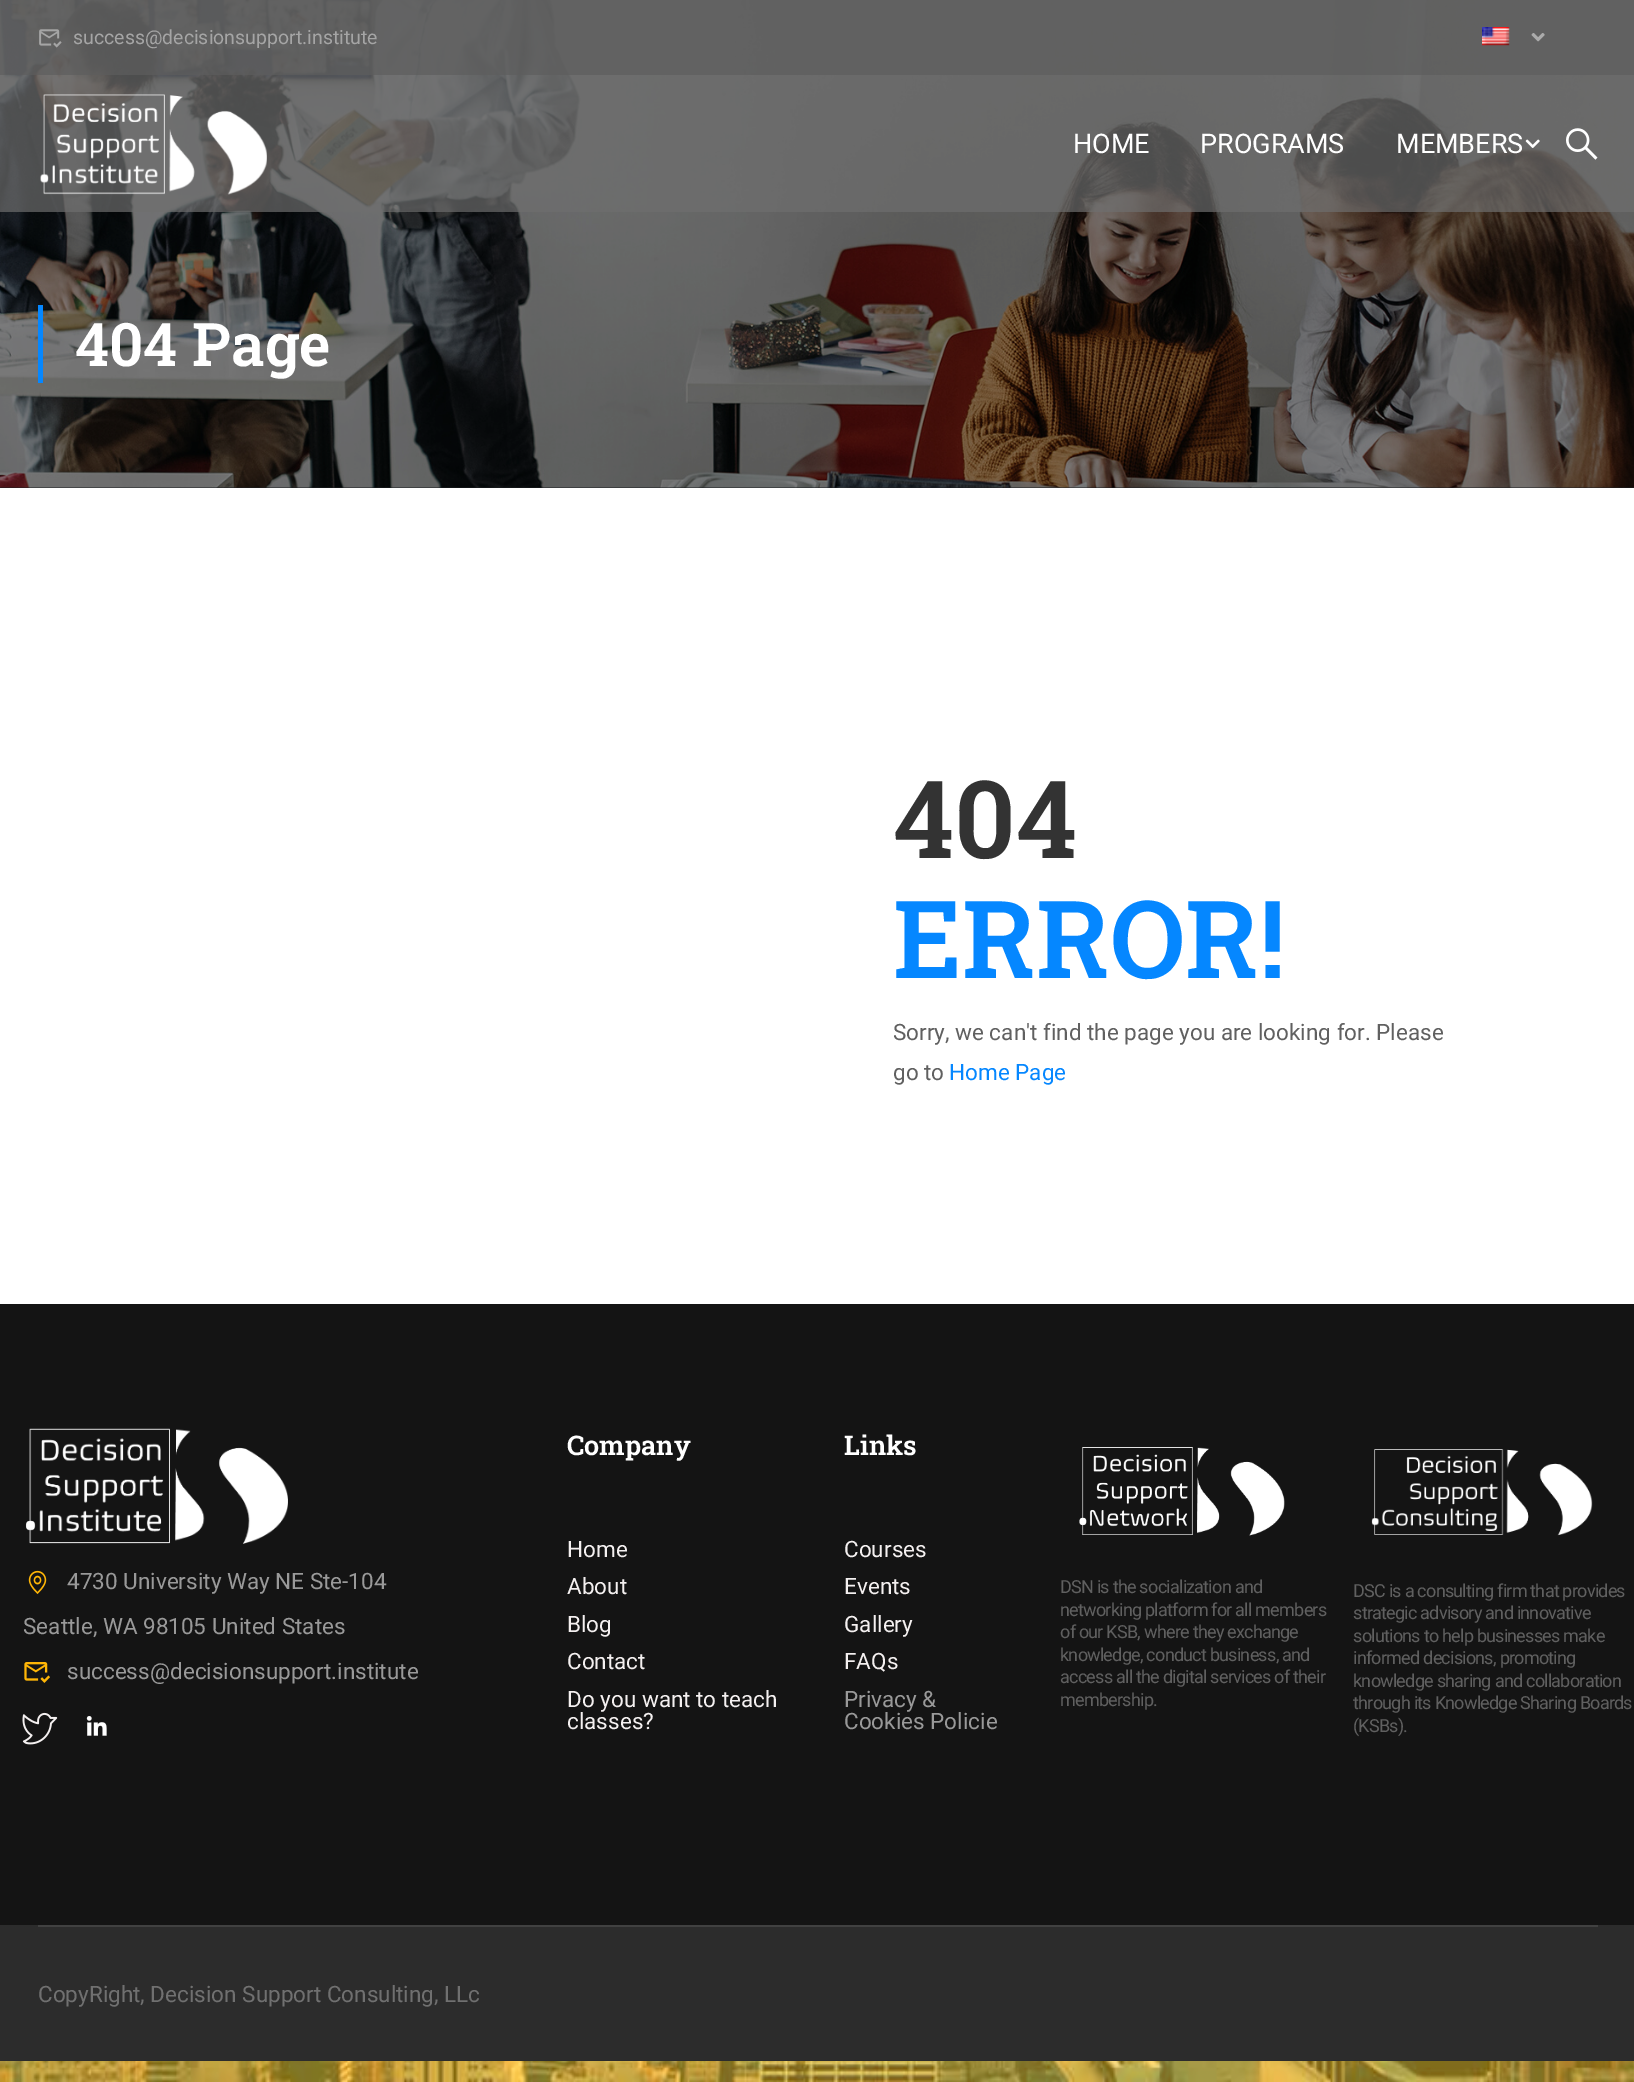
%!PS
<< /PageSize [1634 2082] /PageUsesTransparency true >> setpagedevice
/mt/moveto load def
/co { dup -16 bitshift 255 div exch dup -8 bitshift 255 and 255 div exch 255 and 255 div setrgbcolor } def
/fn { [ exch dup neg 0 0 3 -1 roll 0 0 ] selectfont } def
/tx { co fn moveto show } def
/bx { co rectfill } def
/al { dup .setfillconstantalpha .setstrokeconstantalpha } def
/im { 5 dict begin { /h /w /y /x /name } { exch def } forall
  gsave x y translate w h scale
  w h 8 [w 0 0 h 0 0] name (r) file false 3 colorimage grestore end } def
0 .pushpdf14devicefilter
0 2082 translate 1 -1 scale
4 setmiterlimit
0 0 1634 2082 16#FFFFFF bx
0 487 1634 1 16#1C1F22 bx
(media/7.raw) 0 0 1634 488 im
0.69 al
0 0 1634 212 16#6E6E6E bx
0 0 1634 75 16#5D5D5D bx
1 al
(media/1.raw) 39 29 23 19 im
(media/2.raw) 1482 27 28 19 im
(media/3.raw) 1531 33 14 9 im
(media/4.raw) 40 94 227 101 im
(media/5.raw) 1525 139 15 9 im
(media/6.raw) 1566 128 32 32 im
38 305 5 78 16#0587FF bx
0 1304 1634 621 16#141414 bx
(media/8.raw) 25 1428 263 116 im
(media/9.raw) 28 1570 19 24 im
(media/10.raw) 24 1662 26 21 im
(media/11.raw) 22 1712 36 33 im
(media/12.raw) 86 1716 21 20 im
(media/13.raw) 1079 1447 206 89 im
(media/14.raw) 1371 1449 222 87 im
0 1925 1634 136 16#2C2C2C bx
38 1925 1560 2 16#414141 bx
(media/15.raw) 0 2061 1634 21 im
(success@decisionsupport.institute) 73 44 /Roboto-Regular 19.5 16#A5A5A5 tx
(HOME) 1073 153 /Roboto-Regular 27 16#FFFFFF tx
(PROGRAMS) 1200 153 /Roboto-Regular 27 16#FFFFFF tx
(MEMBERS) 1396 153 /Roboto-Regular 27 16#FFFFFF tx
(404 Page) 75 366 /RobotoSlab-SemiBold 60 16#FFFFFF tx
(404) 893 858 /RobotoSlab-SemiBold 108 16#333333 tx
(ERROR!) 893 978 /RobotoSlab-SemiBold 108 16#0587FF tx
(Sorry, we can't find the page you are looking for. Please) 893 1040 /Roboto-Regular 22.5 16#606060 tx
(go to) 893 1080 /Roboto-Regular 22.5 16#606060 tx
(Home Page) 949 1080 /Roboto-Regular 22.5 16#0587FF tx
(4730 University Way NE Ste-104) 67 1589 /Roboto-Regular 22.5 16#999999 tx
(Seattle, WA 98105 United States) 23 1634 /Roboto-Regular 22.5 16#999999 tx
(success@decisionsupport.institute) 67 1679 /Roboto-Regular 22.5 16#999999 tx
(Company) 567 1455 /RobotoSlab-SemiBold 27 16#FFFFFF tx
(Home) 567 1557 /Roboto-Regular 22.5 16#F4F0F0 tx
(About) 567 1594 /Roboto-Regular 22.5 16#F4F0F0 tx
(Blog) 567 1632 /Roboto-Regular 22.5 16#F4F0F0 tx
(Contact) 567 1669 /Roboto-Regular 22.5 16#F4F0F0 tx
(Do you want to teach) 567 1707 /Roboto-Regular 22.5 16#F4F0F0 tx
(classes?) 567 1729 /Roboto-Regular 22.5 16#F4F0F0 tx
(Links) 844 1455 /RobotoSlab-SemiBold 27 16#FFFFFF tx
(Courses) 844 1557 /Roboto-Regular 22.5 16#F4F0F0 tx
(Events) 844 1594 /Roboto-Regular 22.5 16#F4F0F0 tx
(Gallery) 844 1632 /Roboto-Regular 22.5 16#F4F0F0 tx
(FAQs) 844 1669 /Roboto-Regular 22.5 16#F4F0F0 tx
(Privacy &) 844 1707 /Roboto-Regular 22.5 16#999999 tx
(Cookies Policie) 844 1729 /Roboto-Regular 22.5 16#999999 tx
/Roboto-Regular 18 fn
16#606060 co
1060 1593 mt -.75 0 (DSN is the socialization and) ashow
1060 1616 mt -.75 0 (networking platform for all members) ashow
1060 1638 mt -.75 0 (of our KSB, where they exchange) ashow
1060 1661 mt -.75 0 (knowledge, conduct business, and) ashow
1060 1683 mt -.75 0 (access all the digital services of their) ashow
1060 1706 mt -.75 0 (membership.) ashow
1353 1597 mt -.75 0 (DSC is a consulting firm that provides) ashow
1353 1619 mt -.75 0 (strategic advisory and innovative) ashow
1353 1642 mt -.75 0 (solutions to help businesses make) ashow
1353 1664 mt -.75 0 (informed decisions, promoting) ashow
1353 1687 mt -.75 0 (knowledge sharing and collaboration) ashow
1353 1709 mt -.75 0 (through its Knowledge Sharing Boards) ashow
1353 1732 mt -.75 0 (\(KSBs\).) ashow
(CopyRight, Decision Support Consulting, LLc) 38 2002 /Roboto-Regular 22.5 16#707070 tx
.poppdf14devicefilter showpage
